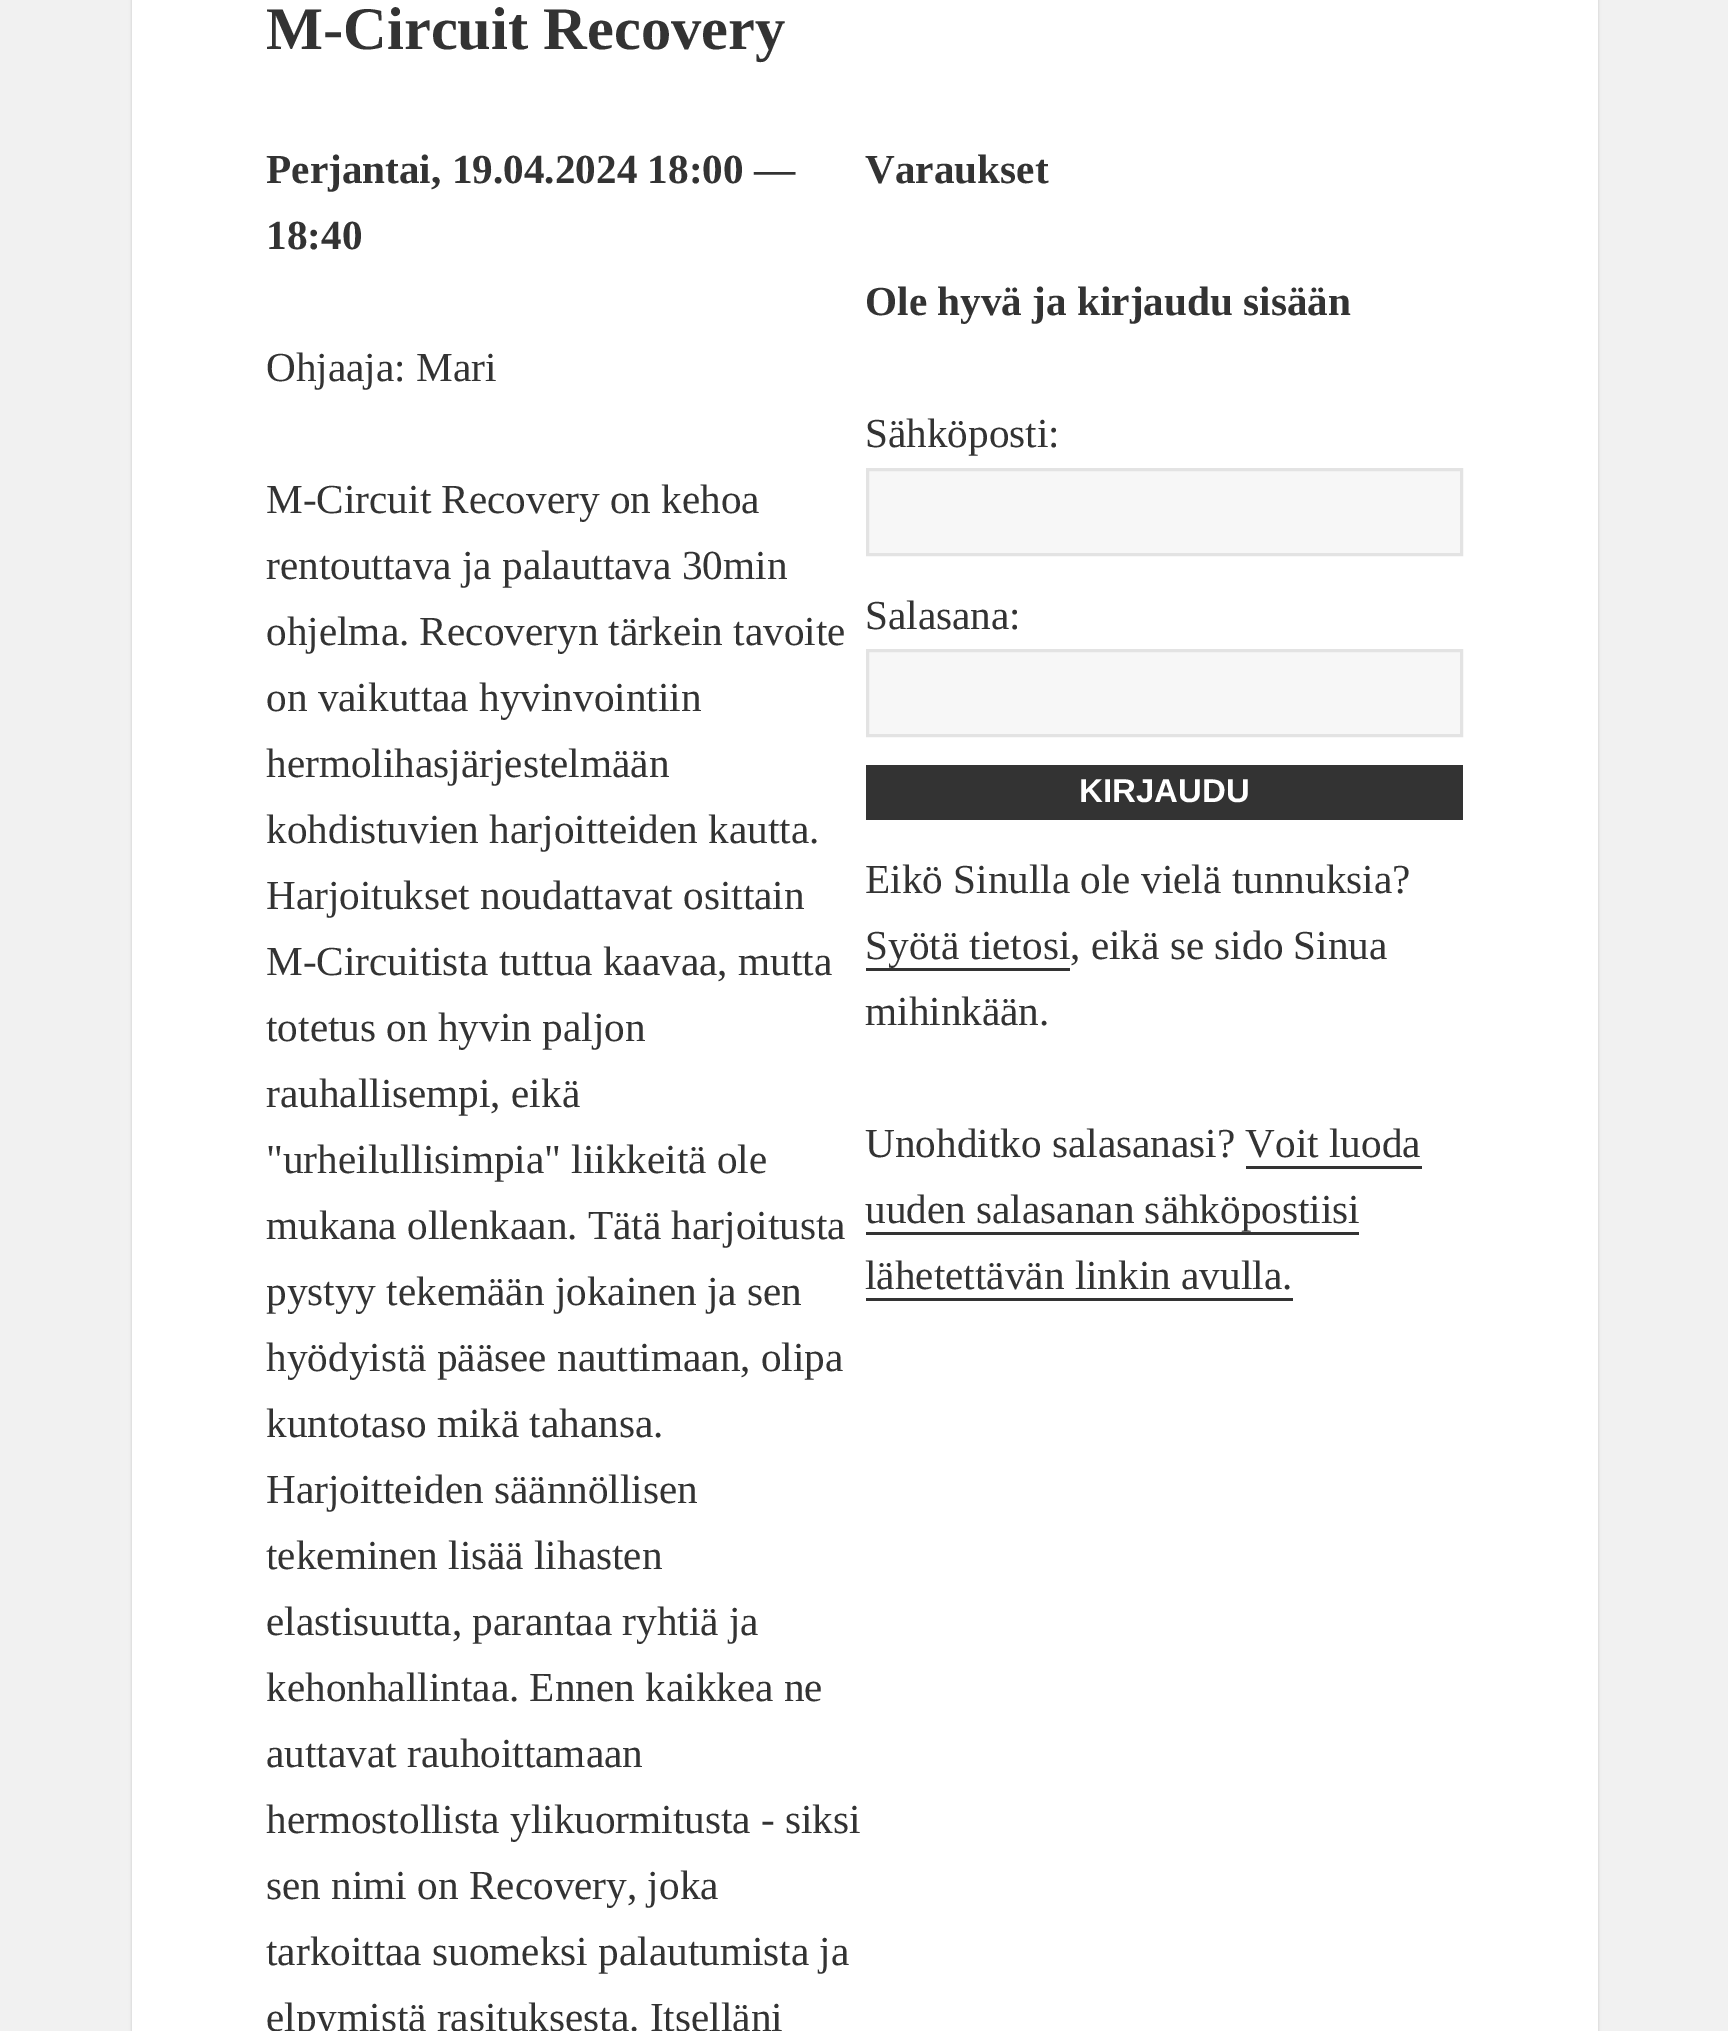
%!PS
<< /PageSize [1728 2031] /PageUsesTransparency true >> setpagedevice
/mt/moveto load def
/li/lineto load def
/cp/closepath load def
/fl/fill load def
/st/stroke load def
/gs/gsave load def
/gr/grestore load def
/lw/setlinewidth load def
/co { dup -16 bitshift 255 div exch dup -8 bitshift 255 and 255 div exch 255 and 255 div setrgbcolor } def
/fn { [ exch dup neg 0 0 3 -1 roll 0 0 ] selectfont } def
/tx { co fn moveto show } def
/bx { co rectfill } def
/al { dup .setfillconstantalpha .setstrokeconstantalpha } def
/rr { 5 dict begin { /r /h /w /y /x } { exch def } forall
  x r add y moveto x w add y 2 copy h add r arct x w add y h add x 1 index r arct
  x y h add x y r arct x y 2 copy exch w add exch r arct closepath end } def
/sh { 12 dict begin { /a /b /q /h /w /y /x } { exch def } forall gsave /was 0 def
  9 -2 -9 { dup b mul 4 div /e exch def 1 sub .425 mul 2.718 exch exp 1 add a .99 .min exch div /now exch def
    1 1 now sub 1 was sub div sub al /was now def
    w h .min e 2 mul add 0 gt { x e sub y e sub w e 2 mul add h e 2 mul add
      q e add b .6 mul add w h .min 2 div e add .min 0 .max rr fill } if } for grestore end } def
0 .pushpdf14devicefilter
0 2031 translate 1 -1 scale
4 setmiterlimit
0 0 1728 2031 16#F1F1F1 bx
16#000000 co
132 -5 1466 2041 0 1.5 .15 sh
132 0 1466 2031 16#FFFFFF bx
16#F7F7F7 co
867.5 469.5 mt 1461.5 469.5 li 1461.5 554.5 li 867.5 554.5 li cp gs fl gr
16#E3E3E3 co
3 lw
st
16#F7F7F7 co
867.5 650.5 mt 1461.5 650.5 li 1461.5 735.5 li 867.5 735.5 li cp gs fl gr
16#E3E3E3 co
st
866 765 597 55 16#333333 bx
866 968 204 3 16#333333 bx
1246 1166 176 3 16#333333 bx
866 1232 493 3 16#333333 bx
866 1298 427 3 16#333333 bx
(M-Circuit Recovery) 266 49 /LiberationSerif-Bold 60.5 16#333333 tx
(Perjantai, 19.04.2024 18:00 —) 266 183 /LiberationSerif-Bold 41.25 16#333333 tx
(18:40) 266 249 /LiberationSerif-Bold 41.25 16#333333 tx
(Ohjaaja: Mari) 266 381 /LiberationSerif-Regular 41.25 16#333333 tx
(M-Circuit Recovery on kehoa) 266 513 /LiberationSerif-Regular 41.25 16#333333 tx
(rentouttava ja palauttava 30min) 266 579 /LiberationSerif-Regular 41.25 16#333333 tx
(ohjelma. Recoveryn tärkein tavoite) 266 645 /LiberationSerif-Regular 41.25 16#333333 tx
(on vaikuttaa hyvinvointiin) 266 711 /LiberationSerif-Regular 41.25 16#333333 tx
(hermolihasjärjestelmään) 266 777 /LiberationSerif-Regular 41.25 16#333333 tx
(kohdistuvien harjoitteiden kautta.) 266 843 /LiberationSerif-Regular 41.25 16#333333 tx
(Harjoitukset noudattavat osittain) 266 909 /LiberationSerif-Regular 41.25 16#333333 tx
(M-Circuitista tuttua kaavaa, mutta) 266 975 /LiberationSerif-Regular 41.25 16#333333 tx
(totetus on hyvin paljon) 266 1041 /LiberationSerif-Regular 41.25 16#333333 tx
(rauhallisempi, eikä) 266 1107 /LiberationSerif-Regular 41.25 16#333333 tx
("urheilullisimpia" liikkeitä ole) 266 1173 /LiberationSerif-Regular 41.25 16#333333 tx
(mukana ollenkaan. Tätä harjoitusta) 266 1239 /LiberationSerif-Regular 41.25 16#333333 tx
(pystyy tekemään jokainen ja sen) 266 1305 /LiberationSerif-Regular 41.25 16#333333 tx
(hyödyistä pääsee nauttimaan, olipa) 266 1371 /LiberationSerif-Regular 41.25 16#333333 tx
(kuntotaso mikä tahansa.) 266 1437 /LiberationSerif-Regular 41.25 16#333333 tx
(Harjoitteiden säännöllisen) 266 1503 /LiberationSerif-Regular 41.25 16#333333 tx
(tekeminen lisää lihasten) 266 1569 /LiberationSerif-Regular 41.25 16#333333 tx
(elastisuutta, parantaa ryhtiä ja) 266 1635 /LiberationSerif-Regular 41.25 16#333333 tx
(kehonhallintaa. Ennen kaikkea ne) 266 1701 /LiberationSerif-Regular 41.25 16#333333 tx
(auttavat rauhoittamaan) 266 1767 /LiberationSerif-Regular 41.25 16#333333 tx
(hermostollista ylikuormitusta - siksi) 266 1833 /LiberationSerif-Regular 41.25 16#333333 tx
(sen nimi on Recovery, joka) 266 1899 /LiberationSerif-Regular 41.25 16#333333 tx
(tarkoittaa suomeksi palautumista ja) 266 1965 /LiberationSerif-Regular 41.25 16#333333 tx
(elpymistä rasituksesta. Itselläni) 266 2031 /LiberationSerif-Regular 41.25 16#333333 tx
(Varaukset) 865 183 /LiberationSerif-Bold 41.25 16#333333 tx
(Ole hyvä ja kirjaudu sisään) 865 315 /LiberationSerif-Bold 41.25 16#333333 tx
(Sähköposti:) 865 447 /LiberationSerif-Regular 41.25 16#333333 tx
(Salasana:) 865 629 /LiberationSerif-Regular 41.25 16#333333 tx
(KIRJAUDU) 1079 802 /LiberationSans-Bold 33 16#FFFFFF tx
(Eikö Sinulla ole vielä tunnuksia?) 865 893 /LiberationSerif-Regular 41.25 16#333333 tx
(Syötä tietosi, eikä se sido Sinua) 865 959 /LiberationSerif-Regular 41.25 16#333333 tx
(mihinkään.) 865 1025 /LiberationSerif-Regular 41.25 16#333333 tx
(Unohditko salasanasi? Voit luoda) 865 1157 /LiberationSerif-Regular 41.25 16#333333 tx
(uuden salasanan sähköpostiisi) 865 1223 /LiberationSerif-Regular 41.25 16#333333 tx
(lähetettävän linkin avulla.) 865 1289 /LiberationSerif-Regular 41.25 16#333333 tx
.poppdf14devicefilter showpage
